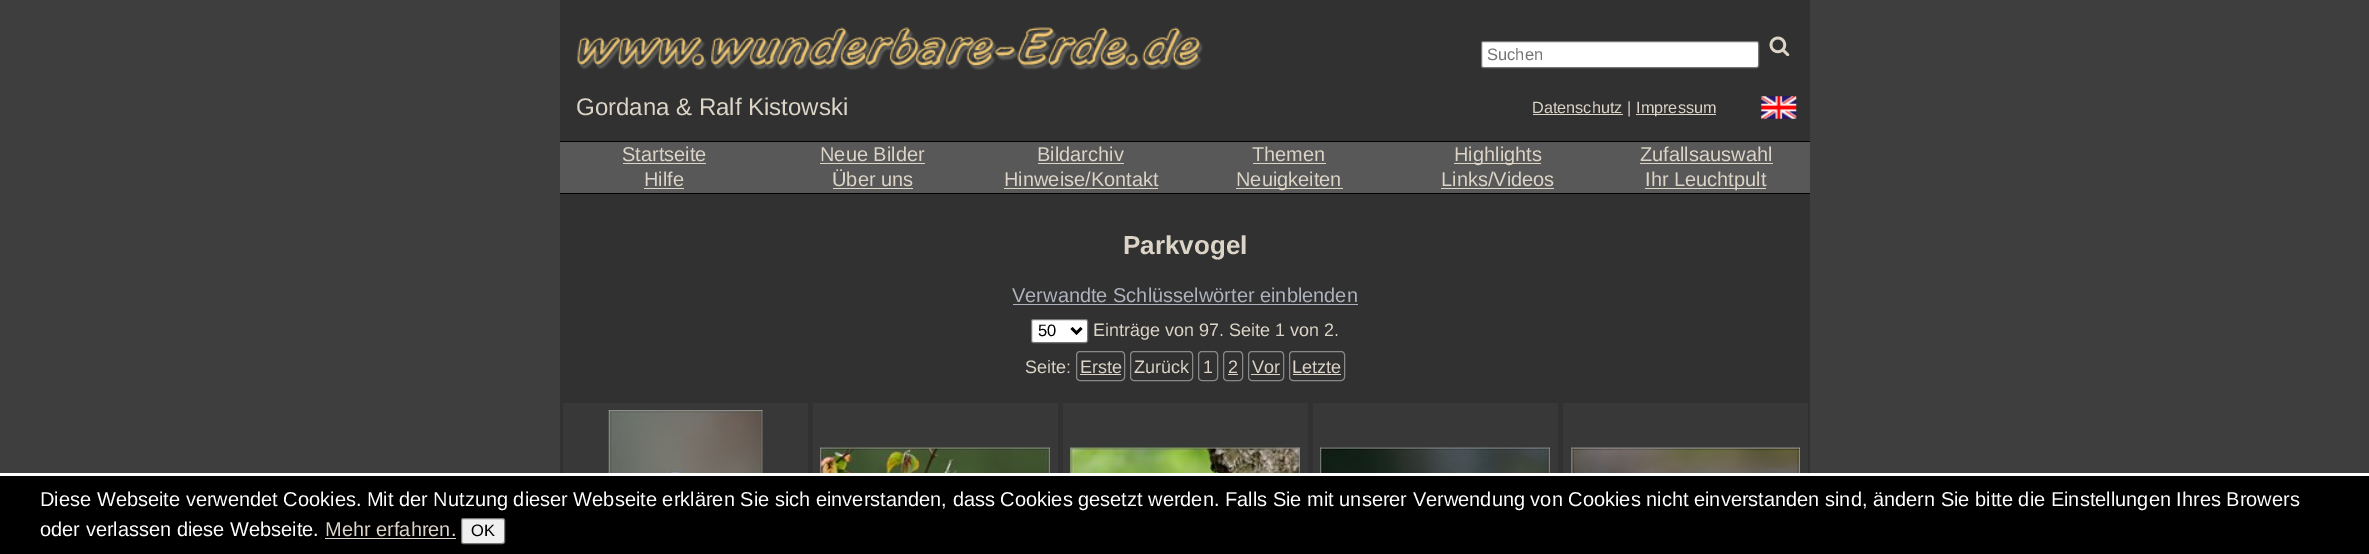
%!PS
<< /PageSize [2369 554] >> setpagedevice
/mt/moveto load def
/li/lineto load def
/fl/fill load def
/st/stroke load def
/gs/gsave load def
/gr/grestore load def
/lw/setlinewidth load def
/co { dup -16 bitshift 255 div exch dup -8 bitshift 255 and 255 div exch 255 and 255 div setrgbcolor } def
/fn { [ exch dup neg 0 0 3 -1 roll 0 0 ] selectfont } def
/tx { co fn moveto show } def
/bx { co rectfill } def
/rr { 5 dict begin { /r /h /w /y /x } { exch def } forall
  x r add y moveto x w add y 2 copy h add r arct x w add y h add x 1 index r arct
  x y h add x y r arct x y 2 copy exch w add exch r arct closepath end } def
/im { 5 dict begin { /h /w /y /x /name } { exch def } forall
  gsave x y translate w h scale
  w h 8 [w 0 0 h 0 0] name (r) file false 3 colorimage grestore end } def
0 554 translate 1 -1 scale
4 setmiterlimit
0 0 2369 554 16#3E3E3E bx
560 0 1250 473 16#313131 bx
(media/1.raw) 577 27 626 43 im
16#FFFFFF co
1481.5 41.5 277 26 2 rr gs fl gr
16#767676 co
st
(media/2.raw) 1769 36 21 20 im
1533 114 90 1 16#DBD4C7 bx
1636 114 80 1 16#DBD4C7 bx
(media/3.raw) 1761 96 36 23 im
560 142 1250 51 16#585858 bx
560 141 1250 1 16#000000 bx
560 193 1250 1 16#000000 bx
623 163 83 1 16#DBD4C7 bx
820 163 105 1 16#DBD4C7 bx
1038 163 86 1 16#DBD4C7 bx
1253 163 73 1 16#DBD4C7 bx
1454 163 87 1 16#DBD4C7 bx
1640 163 133 1 16#DBD4C7 bx
644 188 40 1 16#DBD4C7 bx
833 188 80 1 16#DBD4C7 bx
1004 188 154 1 16#DBD4C7 bx
1236 188 107 1 16#DBD4C7 bx
1441 188 113 1 16#DBD4C7 bx
1645 188 121 1 16#DBD4C7 bx
1013 304 345 1 16#ADB2BD bx
16#FFFFFF co
1031.5 319.5 56 23 2 rr gs fl gr
16#767676 co
st
16#000000 co
2.5 lw
1071.5 328 mt 1076.5 333 li 1081.5 328 li st
16#888888 co
1 lw
1076.5 351.5 48 29 3.5 rr st
1080 374 41 1 16#DBD4C7 bx
16#888888 co
1130.5 351.5 62 29 3.5 rr st
1198.5 351.5 19 29 3.5 rr st
1223.5 351.5 19 29 3.5 rr st
1228 374 10 1 16#DBD4C7 bx
16#888888 co
1248.5 351.5 35 29 3.5 rr st
1251 374 29 1 16#DBD4C7 bx
16#888888 co
1289.5 351.5 55 29 3.5 rr st
1293 374 48 1 16#DBD4C7 bx
563 403 245 70 16#383838 bx
(media/4.raw) 608 410 155 63 im
813 403 245 70 16#383838 bx
(media/5.raw) 820 447 230 26 im
1063 403 245 70 16#383838 bx
(media/6.raw) 1070 447 230 26 im
1313 403 245 70 16#383838 bx
(media/7.raw) 1320 447 230 26 im
1563 403 245 70 16#383838 bx
(media/8.raw) 1571 447 229 26 im
0 476 2369 78 16#000000 bx
0 473 2369 3 16#FFFFFF bx
325 538 131 1 16#DBD4C7 bx
16#EFEFEF co
461.5 518.5 43 25 2 rr gs fl gr
16#767676 co
st
(Suchen) 1487 60 /LiberationSans-Regular 16.5 16#757575 tx
(Gordana & Ralf Kistowski) 576 115 /LiberationSans-Regular 24 16#DBD4C7 tx
(Datenschutz |) 1532 113 /LiberationSans-Regular 16.25 16#DBD4C7 tx
(Impressum) 1636 113 /LiberationSans-Regular 16.25 16#DBD4C7 tx
(Startseite) 622 161 /LiberationSans-Regular 20 16#DBD4C7 tx
(Neue Bilder) 820 161 /LiberationSans-Regular 20 16#DBD4C7 tx
(Bildarchiv) 1037 161 /LiberationSans-Regular 20 16#DBD4C7 tx
(Themen) 1252 161 /LiberationSans-Regular 20 16#DBD4C7 tx
(Highlights) 1454 161 /LiberationSans-Regular 20 16#DBD4C7 tx
(Zufallsauswahl) 1640 161 /LiberationSans-Regular 20 16#DBD4C7 tx
(Hilfe) 644 186 /LiberationSans-Regular 20 16#DBD4C7 tx
(Über uns) 832 186 /LiberationSans-Regular 20 16#DBD4C7 tx
(Hinweise/Kontakt) 1004 186 /LiberationSans-Regular 20 16#DBD4C7 tx
(Neuigkeiten) 1236 186 /LiberationSans-Regular 20 16#DBD4C7 tx
(Links/Videos) 1441 186 /LiberationSans-Regular 20 16#DBD4C7 tx
(Ihr Leuchtpult) 1645 186 /LiberationSans-Regular 20 16#DBD4C7 tx
(Parkvogel) 1123 254 /LiberationSans-Bold 26 16#DBD4C7 tx
(Verwandte Schlüsselwörter einblenden) 1012 302 /LiberationSans-Regular 20 16#ADB2BD tx
(50) 1038 336 /LiberationSans-Regular 16.5 16#000000 tx
(Einträge von 97. Seite 1 von 2.) 1093 336 /LiberationSans-Regular 18 16#DBD4C7 tx
(Seite:) 1025 373 /LiberationSans-Regular 18 16#DBD4C7 tx
(Erste) 1080 373 /LiberationSans-Regular 18 16#DBD4C7 tx
(Zurück) 1134 373 /LiberationSans-Regular 18 16#DBD4C7 tx
(1) 1203 373 /LiberationSans-Regular 18 16#DBD4C7 tx
(2) 1228 373 /LiberationSans-Regular 18 16#DBD4C7 tx
(Vor) 1252 373 /LiberationSans-Regular 18 16#DBD4C7 tx
(Letzte) 1292 373 /LiberationSans-Regular 18 16#DBD4C7 tx
(Diese Webseite verwendet Cookies. Mit der Nutzung dieser Webseite erklären Sie sich einverstanden, dass Cookies gesetzt werden. Falls Sie mit unserer Verwendung von Cookies nicht einverstanden sind, ändern Sie bitte die Einstellungen Ihres Browers) 40 506 /LiberationSans-Regular 20 16#FFFFFF tx
(oder verlassen diese Webseite.) 40 536 /LiberationSans-Regular 20 16#FFFFFF tx
(Mehr erfahren.) 325 536 /LiberationSans-Regular 20 16#DBD4C7 tx
(OK) 471 536 /LiberationSans-Regular 16.5 16#000000 tx
showpage
